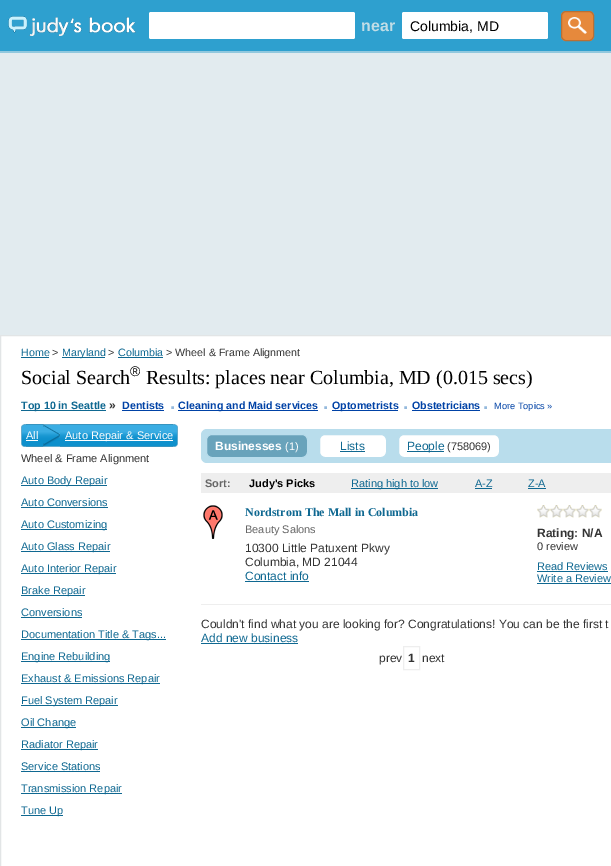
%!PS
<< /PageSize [611 866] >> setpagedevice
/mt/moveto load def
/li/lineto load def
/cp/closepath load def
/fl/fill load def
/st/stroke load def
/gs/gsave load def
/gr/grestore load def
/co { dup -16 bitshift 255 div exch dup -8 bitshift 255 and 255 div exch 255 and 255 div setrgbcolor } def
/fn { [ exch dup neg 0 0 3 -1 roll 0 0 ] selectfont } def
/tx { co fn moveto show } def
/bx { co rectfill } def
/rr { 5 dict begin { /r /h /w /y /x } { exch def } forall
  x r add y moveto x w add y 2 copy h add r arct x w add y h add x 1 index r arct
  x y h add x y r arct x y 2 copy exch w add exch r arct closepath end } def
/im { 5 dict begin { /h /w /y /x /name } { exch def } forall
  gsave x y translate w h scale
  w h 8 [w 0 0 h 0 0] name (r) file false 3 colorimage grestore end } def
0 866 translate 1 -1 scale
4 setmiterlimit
0 0 611 866 16#E2EBEF bx
0 0 611 51 16#2EA0CF bx
0 51 611 2 16#91C8DE bx
(media/1.raw) 8 16 128 20 im
16#FFFFFF co
149 12 206 27 2 rr fl
402 12 146 27 2 rr fl
16#E6893C co
561 11 33 30 5 rr fl
(media/2.raw) 568 17 19 17 im
16#B97035 co
561.5 11.5 32 29 4.5 rr st
16#FFFFFF co
.5 335.5 mt 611.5 335.5 li 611.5 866.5 li .5 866.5 li cp gs fl gr
16#E2E5E6 co
st
21 357 28 1 16#0F6891 bx
62 357 43 1 16#0F6891 bx
118 357 45 1 16#0F6891 bx
21 410 85 1 16#0F6891 bx
122 410 42 1 16#0042A6 bx
178 410 140 1 16#0042A6 bx
332 410 66 1 16#0042A6 bx
412 410 68 1 16#0042A6 bx
(media/3.raw) 21 424 5 23 im
(media/4.raw) 26 424 147 23 im
26 440 12 1 16#FFFFFF bx
(media/5.raw) 43 424 17 23 im
65 440 108 1 16#FFFFFF bx
(media/6.raw) 173 424 5 23 im
21 485 86 1 16#0F6891 bx
21 507 87 1 16#0F6891 bx
21 529 86 1 16#0F6891 bx
21 551 89 1 16#0F6891 bx
21 573 95 1 16#0F6891 bx
21 595 64 1 16#0F6891 bx
21 617 61 1 16#0F6891 bx
21 639 145 1 16#0F6891 bx
21 661 89 1 16#0F6891 bx
21 683 139 1 16#0F6891 bx
21 705 97 1 16#0F6891 bx
21 727 55 1 16#0F6891 bx
21 749 77 1 16#0F6891 bx
21 771 79 1 16#0F6891 bx
21 793 101 1 16#0F6891 bx
21 815 42 1 16#0F6891 bx
16#B9DDEC co
201 429 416 34 6 rr fl
16#69A3BB co
206.5 434.5 101 23 5.5 rr gs fl gr
16#B9DDEC co
st
16#FFFFFF co
319.5 434.5 67 23 5.5 rr gs fl gr
16#B9DDEC co
st
340 451 25 1 16#0F6891 bx
16#FFFFFF co
398.5 434.5 101 23 5.5 rr gs fl gr
16#B9DDEC co
st
407 451 37 1 16#0F6891 bx
201 473 410 20 16#EEEEEE bx
351 488 87 1 16#0F6891 bx
475 488 17 1 16#0F6891 bx
528 488 18 1 16#0F6891 bx
201 604 410 1 16#EEEEEE bx
(media/7.raw) 203 505 20 34 im
245 581 64 1 16#0F6891 bx
(media/8.raw) 537 505 13 13 im
(media/8.raw) 550 505 13 13 im
(media/8.raw) 563 505 13 13 im
(media/9.raw) 576 505 13 13 im
(media/9.raw) 589 505 13 13 im
537 571 71 1 16#0F6891 bx
537 583 74 1 16#0F6891 bx
201 643 97 1 16#0F6891 bx
16#EEEEEE co
403.5 646.5 16 23 rectstroke
(near) 361 31 /LiberationSans-Bold 16 16#C0DDE6 tx
(Columbia, MD) 410 31 /LiberationSans-Regular 14 16#000000 tx
(Home) 21 356 /LiberationSans-Regular 10.7 16#0F6891 tx
(>) 52 356 /LiberationSans-Regular 10.7 16#333333 tx
(Maryland) 62 356 /LiberationSans-Regular 10.7 16#0F6891 tx
(>) 108 356 /LiberationSans-Regular 10.7 16#333333 tx
(Columbia) 118 356 /LiberationSans-Regular 10.7 16#0F6891 tx
(> Wheel & Frame Alignment) 166 356 /LiberationSans-Regular 10.7 16#333333 tx
(Social Search) 21 384 /LiberationSerif-Regular 20 16#000000 tx
(®) 130 376 /LiberationSans-Regular 14 16#000000 tx
(Results: places near Columbia, MD \(0.015 secs\)) 146 384 /LiberationSerif-Regular 20 16#000000 tx
(Top 10 in Seattle) 21 409 /LiberationSans-Bold 10.7 16#0F6891 tx
(») 109 409 /LiberationSans-Bold 12 16#333333 tx
(Dentists) 122 409 /LiberationSans-Bold 10.7 16#0042A6 tx
(.) 170 409 /LiberationSans-Bold 19 16#94B9DC tx
(Cleaning and Maid services) 178 409 /LiberationSans-Bold 10.7 16#0042A6 tx
(.) 323 409 /LiberationSans-Bold 19 16#94B9DC tx
(Optometrists) 332 409 /LiberationSans-Bold 10.7 16#0042A6 tx
(.) 403 409 /LiberationSans-Bold 19 16#94B9DC tx
(Obstetricians) 412 409 /LiberationSans-Bold 10.7 16#0042A6 tx
(.) 483 409 /LiberationSans-Bold 19 16#94B9DC tx
(More Topics ») 494 409 /LiberationSans-Regular 9.25 16#0042A6 tx
(All) 26 439 /LiberationSans-Regular 11 16#FFFFFF tx
(Auto Repair & Service) 65 439 /LiberationSans-Regular 11 16#FFFFFF tx
(Wheel & Frame Alignment) 21 462 /LiberationSans-Regular 11 16#333333 tx
(Auto Body Repair) 21 484 /LiberationSans-Regular 11 16#0F6891 tx
(Auto Conversions) 21 506 /LiberationSans-Regular 11 16#0F6891 tx
(Auto Customizing) 21 528 /LiberationSans-Regular 11 16#0F6891 tx
(Auto Glass Repair) 21 550 /LiberationSans-Regular 11 16#0F6891 tx
(Auto Interior Repair) 21 572 /LiberationSans-Regular 11 16#0F6891 tx
(Brake Repair) 21 594 /LiberationSans-Regular 11 16#0F6891 tx
(Conversions) 21 616 /LiberationSans-Regular 11 16#0F6891 tx
(Documentation Title & Tags...) 21 638 /LiberationSans-Regular 11 16#0F6891 tx
(Engine Rebuilding) 21 660 /LiberationSans-Regular 11 16#0F6891 tx
(Exhaust & Emissions Repair) 21 682 /LiberationSans-Regular 11 16#0F6891 tx
(Fuel System Repair) 21 704 /LiberationSans-Regular 11 16#0F6891 tx
(Oil Change) 21 726 /LiberationSans-Regular 11 16#0F6891 tx
(Radiator Repair) 21 748 /LiberationSans-Regular 11 16#0F6891 tx
(Service Stations) 21 770 /LiberationSans-Regular 11 16#0F6891 tx
(Transmission Repair) 21 792 /LiberationSans-Regular 11 16#0F6891 tx
(Tune Up) 21 814 /LiberationSans-Regular 11 16#0F6891 tx
(Businesses) 215 450 /LiberationSans-Bold 12 16#FFFFFF tx
(\(1\)) 285 450 /LiberationSans-Regular 11 16#FFFFFF tx
(Lists) 340 450 /LiberationSans-Regular 12 16#0F6891 tx
(People) 407 450 /LiberationSans-Regular 12 16#0F6891 tx
(\(758069\)) 447 450 /LiberationSans-Regular 11 16#333333 tx
(Sort:) 205 487 /LiberationSans-Bold 11 16#666666 tx
(Judy's Picks) 249 487 /LiberationSans-Bold 11 16#000000 tx
(Rating high to low) 351 487 /LiberationSans-Regular 11 16#0F6891 tx
(A-Z) 475 487 /LiberationSans-Regular 11 16#0F6891 tx
(Z-A) 528 487 /LiberationSans-Regular 11 16#0F6891 tx
(Nordstrom The Mall in Columbia) 245 516 /LiberationSerif-Bold 12 16#0F6891 tx
(Beauty Salons) 245 533 /LiberationSans-Regular 11 16#666666 tx
(10300 Little Patuxent Pkwy) 245 552 /LiberationSans-Regular 12 16#333333 tx
(Columbia, MD 21044) 245 566 /LiberationSans-Regular 12 16#333333 tx
(Contact info) 245 580 /LiberationSans-Regular 12 16#0F6891 tx
(Rating: N/A) 537 537 /LiberationSans-Bold 12 16#333333 tx
(0 review) 537 550 /LiberationSans-Regular 11 16#333333 tx
(Read Reviews) 537 570 /LiberationSans-Regular 11 16#0F6891 tx
(Write a Review) 537 582 /LiberationSans-Regular 11 16#0F6891 tx
(Couldn't find what you are looking for? Congratulations! You can be the first t) 201 628 /LiberationSans-Regular 12 16#333333 tx
(Add new business) 201 642 /LiberationSans-Regular 12 16#0F6891 tx
(prev) 379 662 /LiberationSans-Regular 12 16#333333 tx
(1) 408 662 /LiberationSans-Bold 12 16#333333 tx
(next) 422 662 /LiberationSans-Regular 12 16#333333 tx
showpage
